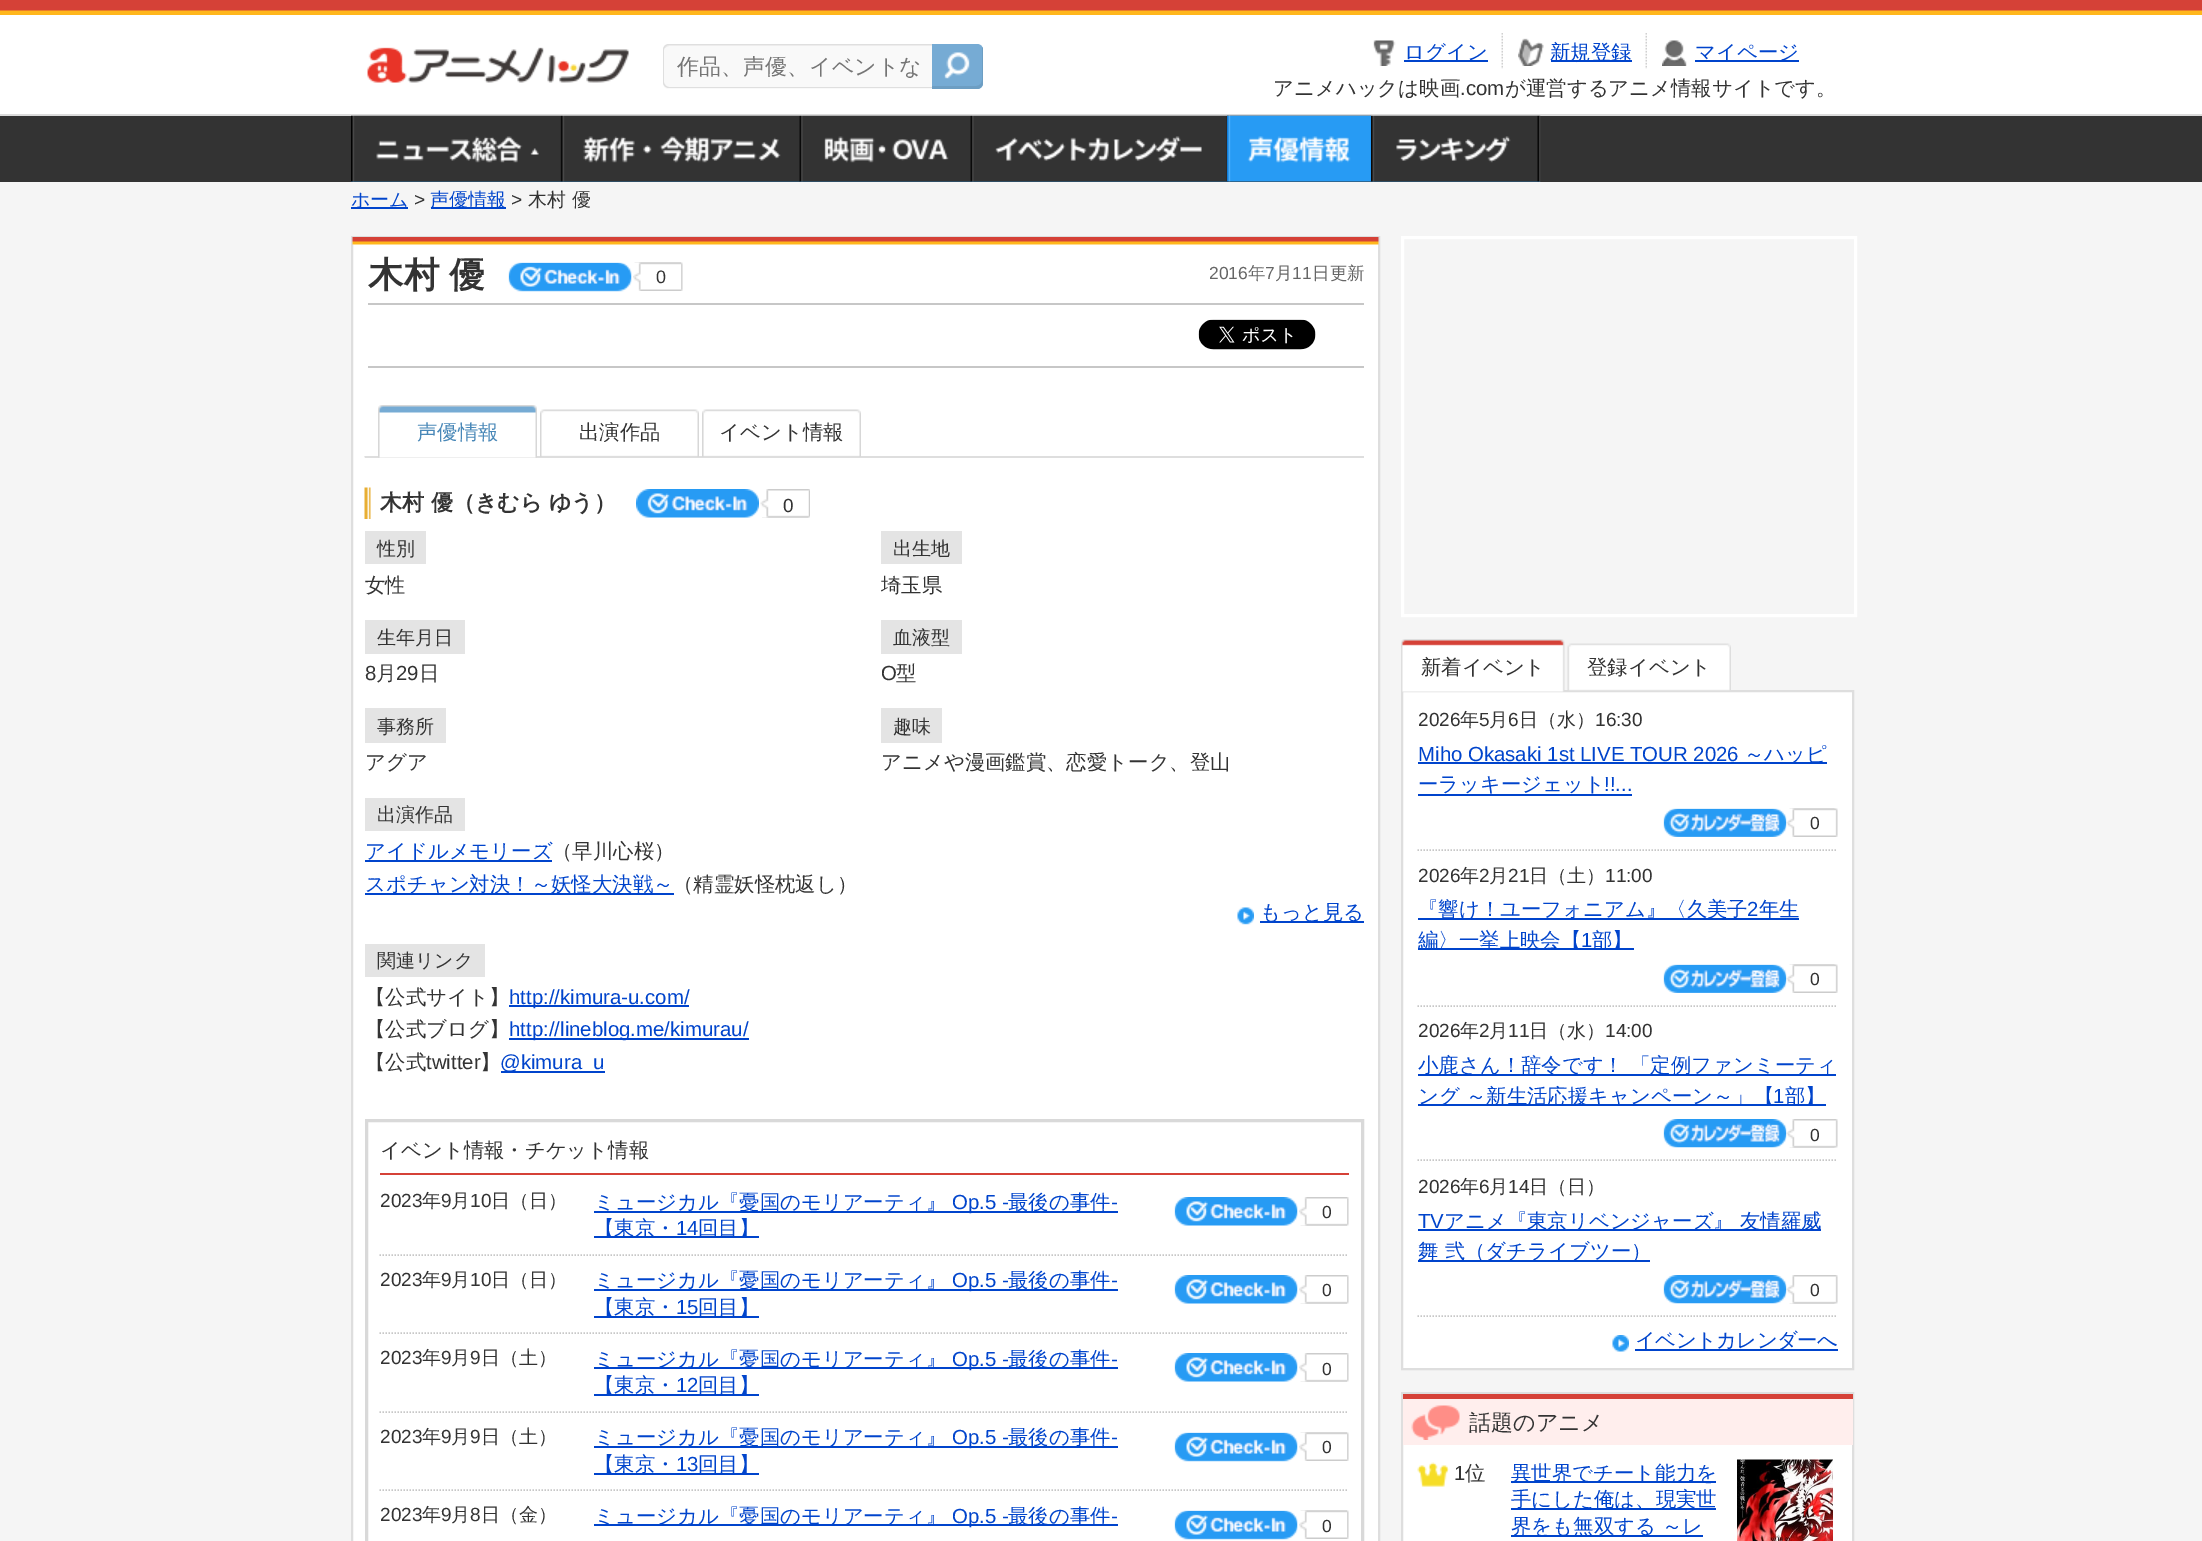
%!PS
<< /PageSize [2202 1541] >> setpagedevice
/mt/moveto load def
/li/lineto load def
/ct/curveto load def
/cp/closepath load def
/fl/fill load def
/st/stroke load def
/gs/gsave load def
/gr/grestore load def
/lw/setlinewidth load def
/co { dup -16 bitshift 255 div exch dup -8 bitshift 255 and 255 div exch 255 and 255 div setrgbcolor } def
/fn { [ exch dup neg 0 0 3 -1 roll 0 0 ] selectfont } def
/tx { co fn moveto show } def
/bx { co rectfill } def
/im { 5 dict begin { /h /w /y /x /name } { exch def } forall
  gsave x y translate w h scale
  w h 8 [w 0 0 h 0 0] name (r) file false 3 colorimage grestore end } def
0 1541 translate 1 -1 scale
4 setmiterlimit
0 0 2202 1541 16#F5F5F5 bx
0 15 2202 99 16#FFFFFF bx
(media/1.raw) 0 0 2202 15 im
0 114 2202 2 16#DBDBDB bx
(media/2.raw) 367 47 262 36 im
16#F9F9F9 co
669 44 mt 932 44 li 932 89 li 669 89 li 665.5 89 663 86.5 663 83 ct 663 50 li 663 46.5 665.5 44 669 44 ct cp fl
16#EDECEC co
669 46 mt 932 46 li 932 45 li 670 45 li 668 45 666 46 665 48 ct 666 47 668 46 669 46 ct cp fl
16#DFDFDF co
669 44 mt 932 44 li 932 88 li 669 88 li 666 88 663 86 663 82 ct 663 50 li 663 46 666 44 669 44 ct cp 669 45 mt 932 45 li 932 87 li 669 87 li 667 87 664 85 664 82 ct 664 50 li 664 47 667 45 669 45 ct cp eofill
16#76ABD4 co
932 44 mt 977 44 li 980.5 44 983 46.5 983 50 ct 983 83 li 983 86.5 980.5 89 977 89 ct 932 89 li cp fl
16#6D9EC3 co
932 86 mt 932 89 li 977 89 li 980 89 983 86 983 83 ct 983 50 li 983 49 983 48 982 47 ct 982 80 li 982 83 980 86 976 86 ct cp fl
(media/3.raw) 944 52 26 27 im
(media/4.raw) 1501 33 2 36 im
(media/5.raw) 1373 40 23 26 im
1404 60 84 2 16#0044CC bx
(media/4.raw) 1645 33 2 36 im
(media/6.raw) 1518 38 26 28 im
1551 60 81 2 16#0044CC bx
(media/7.raw) 1662 40 25 26 im
1695 60 104 2 16#0044CC bx
0 116 2202 66 16#333333 bx
(media/8.raw) 351 115 210 67 im
(media/9.raw) 561 115 239 67 im
(media/10.raw) 799 115 172 67 im
(media/11.raw) 970 115 257 67 im
(media/12.raw) 1227 115 144 67 im
(media/13.raw) 1371 115 170 67 im
351 207 57 2 16#0044CC bx
431 207 75 2 16#0044CC bx
353 244 1025 1297 16#FFFFFF bx
16#DEDEDE co
2 lw
352 237 1027 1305 rectstroke
(media/14.raw) 352 237 1027 8 im
368 303 996 2 16#C7C7C7 bx
(media/15.raw) 508 262 124 30 im
(media/16.raw) 634 262 49 29 im
(media/17.raw) 633 262 48 29 im
368 366 996 2 16#C7C7C7 bx
(media/18.raw) 1198 319 118 31 im
(media/19.raw) 364 456 1 2 im
365 456 999 2 16#DEDEDE bx
(media/20.raw) 378 405 159 53 im
(media/21.raw) 540 409 159 48 im
(media/22.raw) 702 409 159 48 im
(media/23.raw) 364 487 7 32 im
(media/24.raw) 636 489 123 29 im
(media/25.raw) 762 489 48 29 im
(media/26.raw) 760 489 49 29 im
365 531 61 33 16#E4E4E4 bx
365 620 100 34 16#E4E4E4 bx
365 708 81 35 16#E4E4E4 bx
881 531 81 33 16#E4E4E4 bx
881 620 81 34 16#E4E4E4 bx
881 708 61 35 16#E4E4E4 bx
365 798 100 33 16#E4E4E4 bx
365 860 187 2 16#0044CC bx
365 893 309 2 16#0044CC bx
(media/27.raw) 1237 907 17 18 im
1260 921 104 2 16#0044CC bx
365 944 120 33 16#E4E4E4 bx
509 1005 180 2 16#0044CC bx
509 1038 240 2 16#0044CC bx
501 1071 104 2 16#0044CC bx
16#D9D9D9 co
3 lw
366.5 1120.5 996 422 rectstroke
380 1173 969 2 16#D54137 bx
16#C7C7C7 co
1.5 lw
[1.5 1.5] 0 setdash
379.5 1255 mt 1348.5 1255 li st
594 1211 524 2 16#0044CC bx
594 1236 165 2 16#0044CC bx
(media/28.raw) 1174 1197 124 29 im
(media/29.raw) 1300 1197 49 29 im
(media/30.raw) 1299 1197 48 29 im
16#C7C7C7 co
379.5 1333 mt 1348.5 1333 li st
594 1289 524 2 16#0044CC bx
594 1316 165 2 16#0044CC bx
(media/28.raw) 1174 1275 124 29 im
(media/29.raw) 1300 1275 49 29 im
(media/30.raw) 1299 1275 48 29 im
16#C7C7C7 co
379.5 1412 mt 1348.5 1412 li st
594 1367 524 2 16#0044CC bx
594 1394 165 2 16#0044CC bx
(media/28.raw) 1174 1353 124 29 im
(media/29.raw) 1300 1353 49 29 im
(media/30.raw) 1299 1353 48 29 im
16#C7C7C7 co
379.5 1490 mt 1348.5 1490 li st
594 1446 524 2 16#0044CC bx
594 1473 165 2 16#0044CC bx
(media/31.raw) 1174 1432 124 30 im
(media/16.raw) 1300 1432 49 29 im
(media/17.raw) 1299 1432 48 29 im
594 1524 524 2 16#0044CC bx
(media/31.raw) 1174 1510 124 30 im
(media/16.raw) 1300 1510 49 29 im
(media/17.raw) 1299 1510 48 29 im
16#FFFFFF co
3 lw
[] 0 setdash
1402.5 237.5 453 378 rectstroke
1402 691 mt 1853 691 li 1853 1369 li 1402 1369 li cp gs fl gr
16#DEDEDE co
2 lw
st
(media/32.raw) 1401 639 164 53 im
(media/33.raw) 1567 643 164 48 im
16#C7C7C7 co
1.5 lw
[1.5 1.5] 0 setdash
1417.5 850 mt 1837.5 850 li st
1418 762 409 2 16#0044CC bx
1418 794 214 2 16#0044CC bx
(media/16.raw) 1789 808 49 29 im
(media/35.raw) 1786 808 49 29 im
(media/34.raw) 1663 808 124 29 im
16#C7C7C7 co
1417.5 1006 mt 1837.5 1006 li st
1418 918 381 2 16#0044CC bx
1418 948 216 2 16#0044CC bx
(media/16.raw) 1789 964 49 29 im
(media/35.raw) 1786 964 49 29 im
(media/34.raw) 1663 964 124 29 im
16#C7C7C7 co
1417.5 1160 mt 1837.5 1160 li st
1418 1074 418 2 16#0044CC bx
1418 1104 408 2 16#0044CC bx
(media/29.raw) 1789 1119 49 29 im
(media/37.raw) 1786 1119 49 29 im
(media/36.raw) 1663 1119 124 29 im
16#C7C7C7 co
1417.5 1316 mt 1837.5 1316 li st
1418 1229 403 2 16#0044CC bx
1418 1260 232 2 16#0044CC bx
(media/29.raw) 1789 1275 49 29 im
(media/37.raw) 1786 1275 49 29 im
(media/36.raw) 1663 1275 124 29 im
(media/38.raw) 1612 1335 17 17 im
1635 1349 203 2 16#0044CC bx
1403 1445 449 96 16#FFFFFF bx
16#DEDEDE co
2 lw
[] 0 setdash
1402 1393 451 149 rectstroke
1403 1399 450 46 16#FFEEED bx
1403 1394 450 5 16#D54137 bx
(media/39.raw) 1411 1405 49 35 im
(media/40.raw) 1417 1462 32 25 im
1511 1481 205 2 16#0044CC bx
1511 1508 205 2 16#0044CC bx
1511 1535 192 2 16#0044CC bx
(media/41.raw) 1737 1459 96 82 im
(作品、声優、イベントな) 677 74 /WenQuanYiZenHei-Medium 22 16#757575 tx
(ログイン) 1404 59 /WenQuanYiZenHei-Medium 20.4 16#0044CC tx
(新規登録) 1550 59 /WenQuanYiZenHei-Medium 20.4 16#0044CC tx
(マイページ) 1695 59 /WenQuanYiZenHei-Medium 20.4 16#0044CC tx
(アニメハックは映画) 1273 95 /WenQuanYiZenHei-Medium 20.4 16#333333 tx
(.com) 1460 95 /LiberationSans-Regular 20.4 16#333333 tx
(が運営するアニメ情報サイトです。) 1505 95 /WenQuanYiZenHei-Medium 20.4 16#333333 tx
(ホーム) 351 206 /WenQuanYiZenHei-Medium 19 16#0044CC tx
(>) 414 206 /LiberationSans-Regular 19 16#333333 tx
(声優情報) 430 206 /WenQuanYiZenHei-Medium 19 16#0044CC tx
(>) 511 206 /LiberationSans-Regular 19 16#333333 tx
(木村 優) 528 206 /WenQuanYiZenHei-Medium 19 16#333333 tx
/WenQuanYiZenHei-Bold 35.5 fn
368 287 mt -1 0 32 (木村 優) widthshow
(0) 656 283 /LiberationSans-Regular 18 16#333333 tx
(2016) 1209 279 /LiberationSans-Regular 17.5 16#666666 tx
(年) 1248 279 /WenQuanYiZenHei-Medium 17.5 16#666666 tx
(7) 1265 279 /LiberationSans-Regular 17.5 16#666666 tx
(月) 1275 279 /WenQuanYiZenHei-Medium 17.5 16#666666 tx
(11) 1292 279 /LiberationSans-Regular 17.5 16#666666 tx
(日更新) 1312 279 /WenQuanYiZenHei-Medium 17.5 16#666666 tx
(声優情報) 417 439 /WenQuanYiZenHei-Medium 20.4 16#4988B8 tx
(出演作品) 579 439 /WenQuanYiZenHei-Medium 20.4 16#333333 tx
(イベント情報) 719 439 /WenQuanYiZenHei-Medium 20.4 16#333333 tx
(木村 優（きむら ゆう）) 380 510 /WenQuanYiZenHei-Bold 22 16#333333 tx
(0) 783 512 /LiberationSans-Regular 19 16#333333 tx
(性別) 377 555 /WenQuanYiZenHei-Medium 19 16#333333 tx
(女性) 365 592 /WenQuanYiZenHei-Medium 20.4 16#333333 tx
(生年月日) 377 644 /WenQuanYiZenHei-Medium 19 16#333333 tx
(8) 365 680 /LiberationSans-Regular 20.4 16#333333 tx
(月) 376 680 /WenQuanYiZenHei-Medium 20.4 16#333333 tx
(29) 396 680 /LiberationSans-Regular 20.4 16#333333 tx
(日) 419 680 /WenQuanYiZenHei-Medium 20.4 16#333333 tx
(事務所) 377 733 /WenQuanYiZenHei-Medium 19 16#333333 tx
(アグア) 365 769 /WenQuanYiZenHei-Medium 20.4 16#333333 tx
(出生地) 893 555 /WenQuanYiZenHei-Medium 19 16#333333 tx
(埼玉県) 881 592 /WenQuanYiZenHei-Medium 20.4 16#333333 tx
(血液型) 893 644 /WenQuanYiZenHei-Medium 19 16#333333 tx
(O) 881 680 /LiberationSans-Regular 20.4 16#333333 tx
(型) 896 680 /WenQuanYiZenHei-Medium 20.4 16#333333 tx
(趣味) 893 733 /WenQuanYiZenHei-Medium 19 16#333333 tx
(アニメや漫画鑑賞、恋愛トーク、登山) 881 769 /WenQuanYiZenHei-Medium 20.4 16#333333 tx
(出演作品) 377 821 /WenQuanYiZenHei-Medium 19 16#333333 tx
(アイドルメモリーズ) 365 858 /WenQuanYiZenHei-Medium 20.4 16#0044CC tx
(（早川心桜）) 552 858 /WenQuanYiZenHei-Medium 20.4 16#333333 tx
(スポチャン対決！～妖怪大決戦～) 365 891 /WenQuanYiZenHei-Medium 20.4 16#0044CC tx
(（精霊妖怪枕返し）) 673 891 /WenQuanYiZenHei-Medium 20.4 16#333333 tx
(もっと見る) 1260 919 /WenQuanYiZenHei-Medium 20.4 16#0044CC tx
(関連リンク) 377 967 /WenQuanYiZenHei-Medium 19 16#333333 tx
(【公式サイト】) 365 1004 /WenQuanYiZenHei-Medium 20.4 16#333333 tx
(http://kimura-u.com/) 509 1004 /LiberationSans-Regular 20.4 16#0044CC tx
(【公式ブログ】) 365 1036 /WenQuanYiZenHei-Medium 20.4 16#333333 tx
(http://lineblog.me/kimurau/) 509 1036 /LiberationSans-Regular 20.4 16#0044CC tx
(【公式) 365 1069 /WenQuanYiZenHei-Medium 20.4 16#333333 tx
(twitter) 426 1069 /LiberationSans-Regular 20.4 16#333333 tx
(】) 480 1069 /WenQuanYiZenHei-Medium 20.4 16#333333 tx
(@kimura_u) 500 1069 /LiberationSans-Regular 20.4 16#0044CC tx
(イベント情報・チケット情報) 380 1157 /WenQuanYiZenHei-Medium 20.4 16#333333 tx
(2023) 380 1207 /LiberationSans-Regular 19 16#333333 tx
(年) 422 1207 /WenQuanYiZenHei-Medium 19 16#333333 tx
(9) 441 1207 /LiberationSans-Regular 19 16#333333 tx
(月) 451 1207 /WenQuanYiZenHei-Medium 19 16#333333 tx
(10) 470 1207 /LiberationSans-Regular 19 16#333333 tx
(日（日）) 491 1207 /WenQuanYiZenHei-Medium 19 16#333333 tx
(ミュージカル『憂国のモリアーティ』) 594 1209 /WenQuanYiZenHei-Medium 20.4 16#0044CC tx
(Op.5 -) 952 1209 /LiberationSans-Regular 20.4 16#0044CC tx
(最後の事件) 1008 1209 /WenQuanYiZenHei-Medium 20.4 16#0044CC tx
(-) 1111 1209 /LiberationSans-Regular 20.4 16#0044CC tx
(【東京・) 594 1235 /WenQuanYiZenHei-Medium 20.4 16#0044CC tx
(14) 676 1235 /LiberationSans-Regular 20.4 16#0044CC tx
(回目】) 698 1235 /WenQuanYiZenHei-Medium 20.4 16#0044CC tx
(0) 1322 1218 /LiberationSans-Regular 17.5 16#333333 tx
(2023) 380 1286 /LiberationSans-Regular 19 16#333333 tx
(年) 422 1286 /WenQuanYiZenHei-Medium 19 16#333333 tx
(9) 441 1286 /LiberationSans-Regular 19 16#333333 tx
(月) 451 1286 /WenQuanYiZenHei-Medium 19 16#333333 tx
(10) 470 1286 /LiberationSans-Regular 19 16#333333 tx
(日（日）) 491 1286 /WenQuanYiZenHei-Medium 19 16#333333 tx
(ミュージカル『憂国のモリアーティ』) 594 1287 /WenQuanYiZenHei-Medium 20.4 16#0044CC tx
(Op.5 -) 952 1287 /LiberationSans-Regular 20.4 16#0044CC tx
(最後の事件) 1008 1287 /WenQuanYiZenHei-Medium 20.4 16#0044CC tx
(-) 1111 1287 /LiberationSans-Regular 20.4 16#0044CC tx
(【東京・) 594 1314 /WenQuanYiZenHei-Medium 20.4 16#0044CC tx
(15) 676 1314 /LiberationSans-Regular 20.4 16#0044CC tx
(回目】) 698 1314 /WenQuanYiZenHei-Medium 20.4 16#0044CC tx
(0) 1322 1296 /LiberationSans-Regular 17.5 16#333333 tx
(2023) 380 1364 /LiberationSans-Regular 19 16#333333 tx
(年) 422 1364 /WenQuanYiZenHei-Medium 19 16#333333 tx
(9) 441 1364 /LiberationSans-Regular 19 16#333333 tx
(月) 451 1364 /WenQuanYiZenHei-Medium 19 16#333333 tx
(9) 470 1364 /LiberationSans-Regular 19 16#333333 tx
(日（土）) 481 1364 /WenQuanYiZenHei-Medium 19 16#333333 tx
(ミュージカル『憂国のモリアーティ』) 594 1366 /WenQuanYiZenHei-Medium 20.4 16#0044CC tx
(Op.5 -) 952 1366 /LiberationSans-Regular 20.4 16#0044CC tx
(最後の事件) 1008 1366 /WenQuanYiZenHei-Medium 20.4 16#0044CC tx
(-) 1111 1366 /LiberationSans-Regular 20.4 16#0044CC tx
(【東京・) 594 1392 /WenQuanYiZenHei-Medium 20.4 16#0044CC tx
(12) 676 1392 /LiberationSans-Regular 20.4 16#0044CC tx
(回目】) 698 1392 /WenQuanYiZenHei-Medium 20.4 16#0044CC tx
(0) 1322 1375 /LiberationSans-Regular 17.5 16#333333 tx
(2023) 380 1443 /LiberationSans-Regular 19 16#333333 tx
(年) 422 1443 /WenQuanYiZenHei-Medium 19 16#333333 tx
(9) 441 1443 /LiberationSans-Regular 19 16#333333 tx
(月) 451 1443 /WenQuanYiZenHei-Medium 19 16#333333 tx
(9) 470 1443 /LiberationSans-Regular 19 16#333333 tx
(日（土）) 481 1443 /WenQuanYiZenHei-Medium 19 16#333333 tx
(ミュージカル『憂国のモリアーティ』) 594 1444 /WenQuanYiZenHei-Medium 20.4 16#0044CC tx
(Op.5 -) 952 1444 /LiberationSans-Regular 20.4 16#0044CC tx
(最後の事件) 1008 1444 /WenQuanYiZenHei-Medium 20.4 16#0044CC tx
(-) 1111 1444 /LiberationSans-Regular 20.4 16#0044CC tx
(【東京・) 594 1471 /WenQuanYiZenHei-Medium 20.4 16#0044CC tx
(13) 676 1471 /LiberationSans-Regular 20.4 16#0044CC tx
(回目】) 698 1471 /WenQuanYiZenHei-Medium 20.4 16#0044CC tx
(0) 1322 1453 /LiberationSans-Regular 17.5 16#333333 tx
(2023) 380 1521 /LiberationSans-Regular 19 16#333333 tx
(年) 422 1521 /WenQuanYiZenHei-Medium 19 16#333333 tx
(9) 441 1521 /LiberationSans-Regular 19 16#333333 tx
(月) 451 1521 /WenQuanYiZenHei-Medium 19 16#333333 tx
(8) 470 1521 /LiberationSans-Regular 19 16#333333 tx
(日（金）) 481 1521 /WenQuanYiZenHei-Medium 19 16#333333 tx
(ミュージカル『憂国のモリアーティ』) 594 1523 /WenQuanYiZenHei-Medium 20.4 16#0044CC tx
(Op.5 -) 952 1523 /LiberationSans-Regular 20.4 16#0044CC tx
(最後の事件) 1008 1523 /WenQuanYiZenHei-Medium 20.4 16#0044CC tx
(-) 1111 1523 /LiberationSans-Regular 20.4 16#0044CC tx
(0) 1322 1532 /LiberationSans-Regular 17.5 16#333333 tx
(新着イベント) 1421 674 /WenQuanYiZenHei-Medium 20.4 16#333333 tx
(登録イベント) 1587 674 /WenQuanYiZenHei-Medium 20.4 16#333333 tx
(2026) 1418 726 /LiberationSans-Regular 19 16#333333 tx
(年) 1460 726 /WenQuanYiZenHei-Medium 19 16#333333 tx
(5) 1479 726 /LiberationSans-Regular 19 16#333333 tx
(月) 1489 726 /WenQuanYiZenHei-Medium 19 16#333333 tx
(6) 1508 726 /LiberationSans-Regular 19 16#333333 tx
(日（水）) 1519 726 /WenQuanYiZenHei-Medium 19 16#333333 tx
(16:30) 1595 726 /LiberationSans-Regular 19 16#333333 tx
(Miho Okasaki 1st LIVE TOUR 2026) 1418 761 /LiberationSans-Regular 20.4 16#0044CC tx
(～ハッピ) 1744 761 /WenQuanYiZenHei-Medium 20.4 16#0044CC tx
(ーラッキージェット) 1418 791 /WenQuanYiZenHei-Medium 20.4 16#0044CC tx
(!!...) 1604 791 /LiberationSans-Regular 20.4 16#0044CC tx
(0) 1810 829 /LiberationSans-Regular 17.5 16#333333 tx
(2026) 1418 882 /LiberationSans-Regular 19 16#333333 tx
(年) 1460 882 /WenQuanYiZenHei-Medium 19 16#333333 tx
(2) 1479 882 /LiberationSans-Regular 19 16#333333 tx
(月) 1489 882 /WenQuanYiZenHei-Medium 19 16#333333 tx
(21) 1508 882 /LiberationSans-Regular 19 16#333333 tx
(日（土）) 1529 882 /WenQuanYiZenHei-Medium 19 16#333333 tx
(11:00) 1605 882 /LiberationSans-Regular 19 16#333333 tx
(『響け！ユーフォニアム』〈久美子) 1418 916 /WenQuanYiZenHei-Medium 20.4 16#0044CC tx
(2) 1747 916 /LiberationSans-Regular 20.4 16#0044CC tx
(年生) 1759 916 /WenQuanYiZenHei-Medium 20.4 16#0044CC tx
(編〉一挙上映会【) 1418 947 /WenQuanYiZenHei-Medium 20.4 16#0044CC tx
(1) 1581 947 /LiberationSans-Regular 20.4 16#0044CC tx
(部】) 1592 947 /WenQuanYiZenHei-Medium 20.4 16#0044CC tx
(0) 1810 985 /LiberationSans-Regular 17.5 16#333333 tx
(2026) 1418 1037 /LiberationSans-Regular 19 16#333333 tx
(年) 1460 1037 /WenQuanYiZenHei-Medium 19 16#333333 tx
(2) 1479 1037 /LiberationSans-Regular 19 16#333333 tx
(月) 1489 1037 /WenQuanYiZenHei-Medium 19 16#333333 tx
(11) 1508 1037 /LiberationSans-Regular 19 16#333333 tx
(日（水）) 1529 1037 /WenQuanYiZenHei-Medium 19 16#333333 tx
(14:00) 1605 1037 /LiberationSans-Regular 19 16#333333 tx
(小鹿さん！辞令です！ 「定例ファンミーティ) 1418 1072 /WenQuanYiZenHei-Medium 20.4 16#0044CC tx
(ング ～新生活応援キャンペーン～」【) 1418 1103 /WenQuanYiZenHei-Medium 20.4 16#0044CC tx
(1) 1773 1103 /LiberationSans-Regular 20.4 16#0044CC tx
(部】) 1785 1103 /WenQuanYiZenHei-Medium 20.4 16#0044CC tx
(0) 1810 1141 /LiberationSans-Regular 17.5 16#333333 tx
(2026) 1418 1193 /LiberationSans-Regular 19 16#333333 tx
(年) 1460 1193 /WenQuanYiZenHei-Medium 19 16#333333 tx
(6) 1479 1193 /LiberationSans-Regular 19 16#333333 tx
(月) 1489 1193 /WenQuanYiZenHei-Medium 19 16#333333 tx
(14) 1508 1193 /LiberationSans-Regular 19 16#333333 tx
(日（日）) 1529 1193 /WenQuanYiZenHei-Medium 19 16#333333 tx
(TV) 1418 1228 /LiberationSans-Regular 20.4 16#0044CC tx
(アニメ『東京リベンジャーズ』 友情羅威) 1444 1228 /WenQuanYiZenHei-Medium 20.4 16#0044CC tx
(舞 弐（ダチライブツー）) 1418 1258 /WenQuanYiZenHei-Medium 20.4 16#0044CC tx
(0) 1810 1296 /LiberationSans-Regular 17.5 16#333333 tx
/WenQuanYiZenHei-Medium 20.4 fn
16#0044CC co
1635 1347 mt -.6 0 (イベントカレンダーへ) ashow
(話題のアニメ) 1469 1430 /WenQuanYiZenHei-Medium 22 16#333333 tx
(1) 1454 1480 /LiberationSans-Regular 20.4 16#333333 tx
(位) 1465 1480 /WenQuanYiZenHei-Medium 20.4 16#333333 tx
(異世界でチート能力を) 1511 1480 /WenQuanYiZenHei-Medium 20.4 16#0044CC tx
(手にした俺は、現実世) 1511 1506 /WenQuanYiZenHei-Medium 20.4 16#0044CC tx
(界をも無双する ～レ) 1511 1533 /WenQuanYiZenHei-Medium 20.4 16#0044CC tx
showpage
